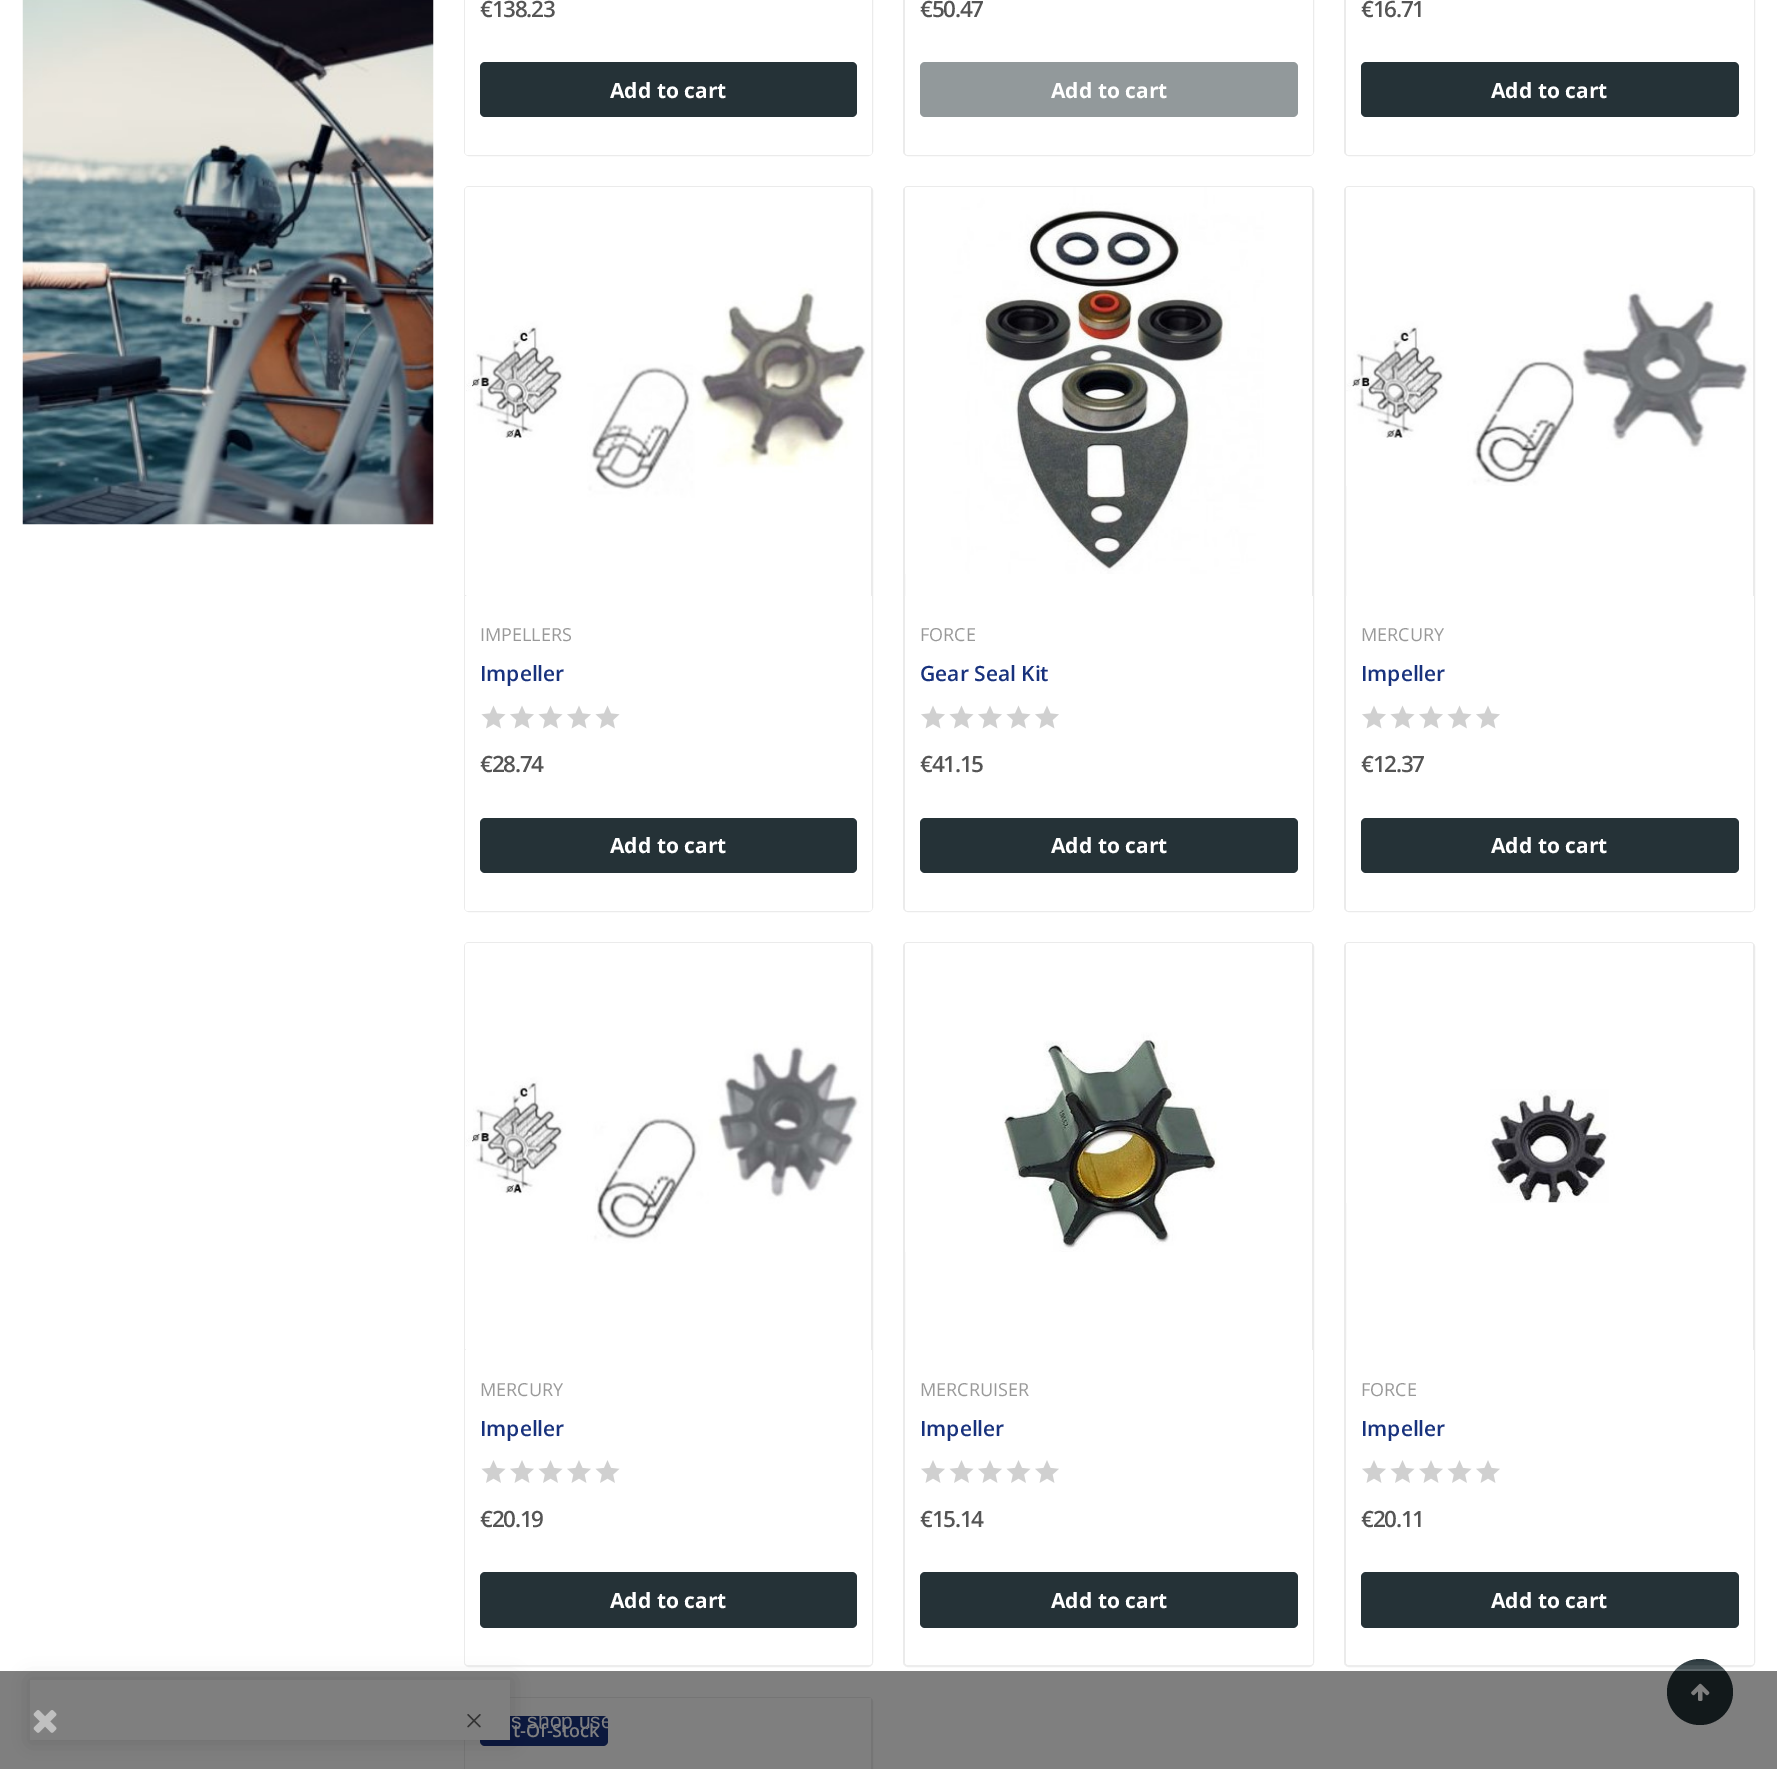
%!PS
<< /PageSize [1777 1769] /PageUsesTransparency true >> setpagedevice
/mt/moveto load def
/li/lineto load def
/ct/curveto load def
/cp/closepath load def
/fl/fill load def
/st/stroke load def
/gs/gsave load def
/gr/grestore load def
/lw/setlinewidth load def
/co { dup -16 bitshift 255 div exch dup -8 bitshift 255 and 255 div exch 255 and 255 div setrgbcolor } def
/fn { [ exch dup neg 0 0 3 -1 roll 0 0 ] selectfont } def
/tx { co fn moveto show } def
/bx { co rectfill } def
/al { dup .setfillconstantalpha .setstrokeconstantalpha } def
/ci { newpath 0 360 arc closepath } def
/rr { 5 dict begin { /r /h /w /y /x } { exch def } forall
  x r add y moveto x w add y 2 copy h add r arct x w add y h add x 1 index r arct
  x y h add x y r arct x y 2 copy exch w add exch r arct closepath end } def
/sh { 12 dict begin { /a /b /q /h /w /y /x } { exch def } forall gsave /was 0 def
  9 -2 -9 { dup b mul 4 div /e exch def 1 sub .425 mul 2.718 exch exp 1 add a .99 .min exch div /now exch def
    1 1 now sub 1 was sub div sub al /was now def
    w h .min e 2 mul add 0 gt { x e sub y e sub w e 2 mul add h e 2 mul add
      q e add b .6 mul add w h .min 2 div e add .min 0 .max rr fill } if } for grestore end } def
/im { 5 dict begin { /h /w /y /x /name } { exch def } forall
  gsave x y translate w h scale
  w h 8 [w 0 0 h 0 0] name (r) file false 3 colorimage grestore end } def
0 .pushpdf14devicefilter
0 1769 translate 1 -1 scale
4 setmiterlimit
0 0 1777 1769 16#FFFFFF bx
16#EBEBEB co
2 lw
465 943 407 723 4 rr st
16#FFFFFF co
465 1350 mt 872 1350 li 872 1662 li 872 1663.5 870.5 1665 869 1665 ct 468 1665 li 466.5 1665 465 1663.5 465 1662 ct cp fl
16#EBEBEB co
465 1698 407 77 4 rr st
465 1698 406 71 16#FFFFFF bx
16#18327D co
480 1716 128 30 5 rr fl
16#000000 co
29 1679 484 64 0 10 .12 sh
30 1680 480 60 16#FFFFFF bx
(media/1.raw) 467 1714 14 14 im
(media/2.raw) 22 0 412 525 im
16#EBEBEB co
465 -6 407 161 4 rr st
16#FFFFFF co
465 -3 mt 872 -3 li 872 152 li 872 153.5 870.5 155 869 155 ct 468 155 li 466.5 155 465 153.5 465 152 ct cp fl
16#253237 co
480 62 377 55 5 rr fl
16#EBEBEB co
904 -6 409 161 4 rr st
16#FFFFFF co
905 -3 mt 1313 -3 li 1313 152 li 1313 153.5 1311.5 155 1310 155 ct 908 155 li 906.5 155 905 153.5 905 152 ct cp fl
16#92999B co
920 62 378 55 5 rr fl
16#EBEBEB co
1345 -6 409 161 4 rr st
16#FFFFFF co
1346 -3 mt 1754 -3 li 1754 152 li 1754 153.5 1752.5 155 1751 155 ct 1349 155 li 1347.5 155 1346 153.5 1346 152 ct cp fl
16#253237 co
1361 62 378 55 5 rr fl
16#EBEBEB co
465 187 407 724 4 rr st
(media/3.raw) 465 187 406 408 im
16#FFFFFF co
465 596 mt 872 596 li 872 908 li 872 909.5 870.5 911 869 911 ct 468 911 li 466.5 911 465 909.5 465 908 ct cp fl
(media/4.raw) 481 705 139 24 im
16#253237 co
480 818 377 55 5 rr fl
16#EBEBEB co
904 187 409 724 4 rr st
(media/5.raw) 905 187 407 387 im
16#FFFFFF co
905 596 mt 1313 596 li 1313 908 li 1313 909.5 1311.5 911 1310 911 ct 908 911 li 906.5 911 905 909.5 905 908 ct cp fl
(media/6.raw) 921 705 138 24 im
16#253237 co
920 818 378 55 5 rr fl
16#EBEBEB co
1345 187 409 724 4 rr st
(media/7.raw) 1346 187 407 299 im
16#FFFFFF co
1346 596 mt 1754 596 li 1754 908 li 1754 909.5 1752.5 911 1751 911 ct 1349 911 li 1347.5 911 1346 909.5 1346 908 ct cp fl
(media/6.raw) 1362 705 138 24 im
16#253237 co
1361 818 378 55 5 rr fl
(media/8.raw) 465 943 406 407 im
(media/9.raw) 481 1460 139 23 im
480 1572 377 56 5 rr fl
16#EBEBEB co
904 943 409 723 4 rr st
(media/10.raw) 905 943 407 309 im
16#FFFFFF co
905 1350 mt 1313 1350 li 1313 1662 li 1313 1663.5 1311.5 1665 1310 1665 ct 908 1665 li 906.5 1665 905 1663.5 905 1662 ct cp fl
(media/11.raw) 921 1460 138 23 im
16#253237 co
920 1572 378 56 5 rr fl
16#EBEBEB co
1345 943 409 723 4 rr st
(media/12.raw) 1346 943 407 260 im
16#FFFFFF co
1346 1350 mt 1754 1350 li 1754 1662 li 1754 1663.5 1752.5 1665 1751 1665 ct 1349 1665 li 1347.5 1665 1346 1663.5 1346 1662 ct cp fl
(media/11.raw) 1362 1460 138 23 im
16#253237 co
1361 1572 378 56 5 rr fl
1700 1692 33 ci fl
(media/13.raw) 1691 1683 19 18 im
gs
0 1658 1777 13 rectclip
16#FFFFFF co
0 1671 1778 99 0 7.5 .5 sh
gr
/OpenSans-SemiBold 22.5 fn
16#555555 co
480 17 mt -1.25 0 (€138.23) ashow
(Add to cart) 610 98 /OpenSans-Bold 21 16#FFFFFF tx
/OpenSans-SemiBold 22.5 fn
16#555555 co
920 17 mt -1.25 0 (€50.47) ashow
(Add to cart) 1051 98 /OpenSans-Bold 21 16#FFFFFF tx
/OpenSans-SemiBold 22.5 fn
16#555555 co
1361 17 mt -1.25 0 (€16.71) ashow
(Add to cart) 1491 98 /OpenSans-Bold 21 16#FFFFFF tx
(IMPELLERS) 480 641 /OpenSans-Regular 18 16#999999 tx
(Impeller) 480 681 /OpenSans-SemiBold 21 16#18327D tx
/OpenSans-SemiBold 22.5 fn
16#555555 co
480 772 mt -1.25 0 (€28.74) ashow
(Add to cart) 610 853 /OpenSans-Bold 21 16#FFFFFF tx
(FORCE) 920 641 /OpenSans-Regular 18 16#999999 tx
(Gear Seal Kit) 920 681 /OpenSans-SemiBold 21 16#18327D tx
/OpenSans-SemiBold 22.5 fn
16#555555 co
920 772 mt -1.25 0 (€41.15) ashow
(Add to cart) 1051 853 /OpenSans-Bold 21 16#FFFFFF tx
(MERCURY) 1361 641 /OpenSans-Regular 18 16#999999 tx
(Impeller) 1361 681 /OpenSans-SemiBold 21 16#18327D tx
/OpenSans-SemiBold 22.5 fn
16#555555 co
1361 772 mt -1.25 0 (€12.37) ashow
(Add to cart) 1491 853 /OpenSans-Bold 21 16#FFFFFF tx
(MERCURY) 480 1396 /OpenSans-Regular 18 16#999999 tx
(Impeller) 480 1436 /OpenSans-SemiBold 21 16#18327D tx
/OpenSans-SemiBold 22.5 fn
16#555555 co
480 1527 mt -1.25 0 (€20.19) ashow
(Add to cart) 610 1608 /OpenSans-Bold 21 16#FFFFFF tx
(MERCRUISER) 920 1396 /OpenSans-Regular 18 16#999999 tx
(Impeller) 920 1436 /OpenSans-SemiBold 21 16#18327D tx
/OpenSans-SemiBold 22.5 fn
16#555555 co
920 1527 mt -1.25 0 (€15.14) ashow
(Add to cart) 1051 1608 /OpenSans-Bold 21 16#FFFFFF tx
(FORCE) 1361 1396 /OpenSans-Regular 18 16#999999 tx
(Impeller) 1361 1436 /OpenSans-SemiBold 21 16#18327D tx
/OpenSans-SemiBold 22.5 fn
16#555555 co
1361 1527 mt -1.25 0 (€20.11) ashow
(Add to cart) 1491 1608 /OpenSans-Bold 21 16#FFFFFF tx
(t-Of-Stock) 513 1737 /OpenSans-SemiBold 18 16#FFFFFF tx
0.5 al
0 1671 1777 98 16#000000 bx
1 al
(media/14.raw) 33 1710 24 23 im
(s shop use) 511 1728 /LiberationSans-Regular 21 16#7F7F81 tx
.poppdf14devicefilter showpage
